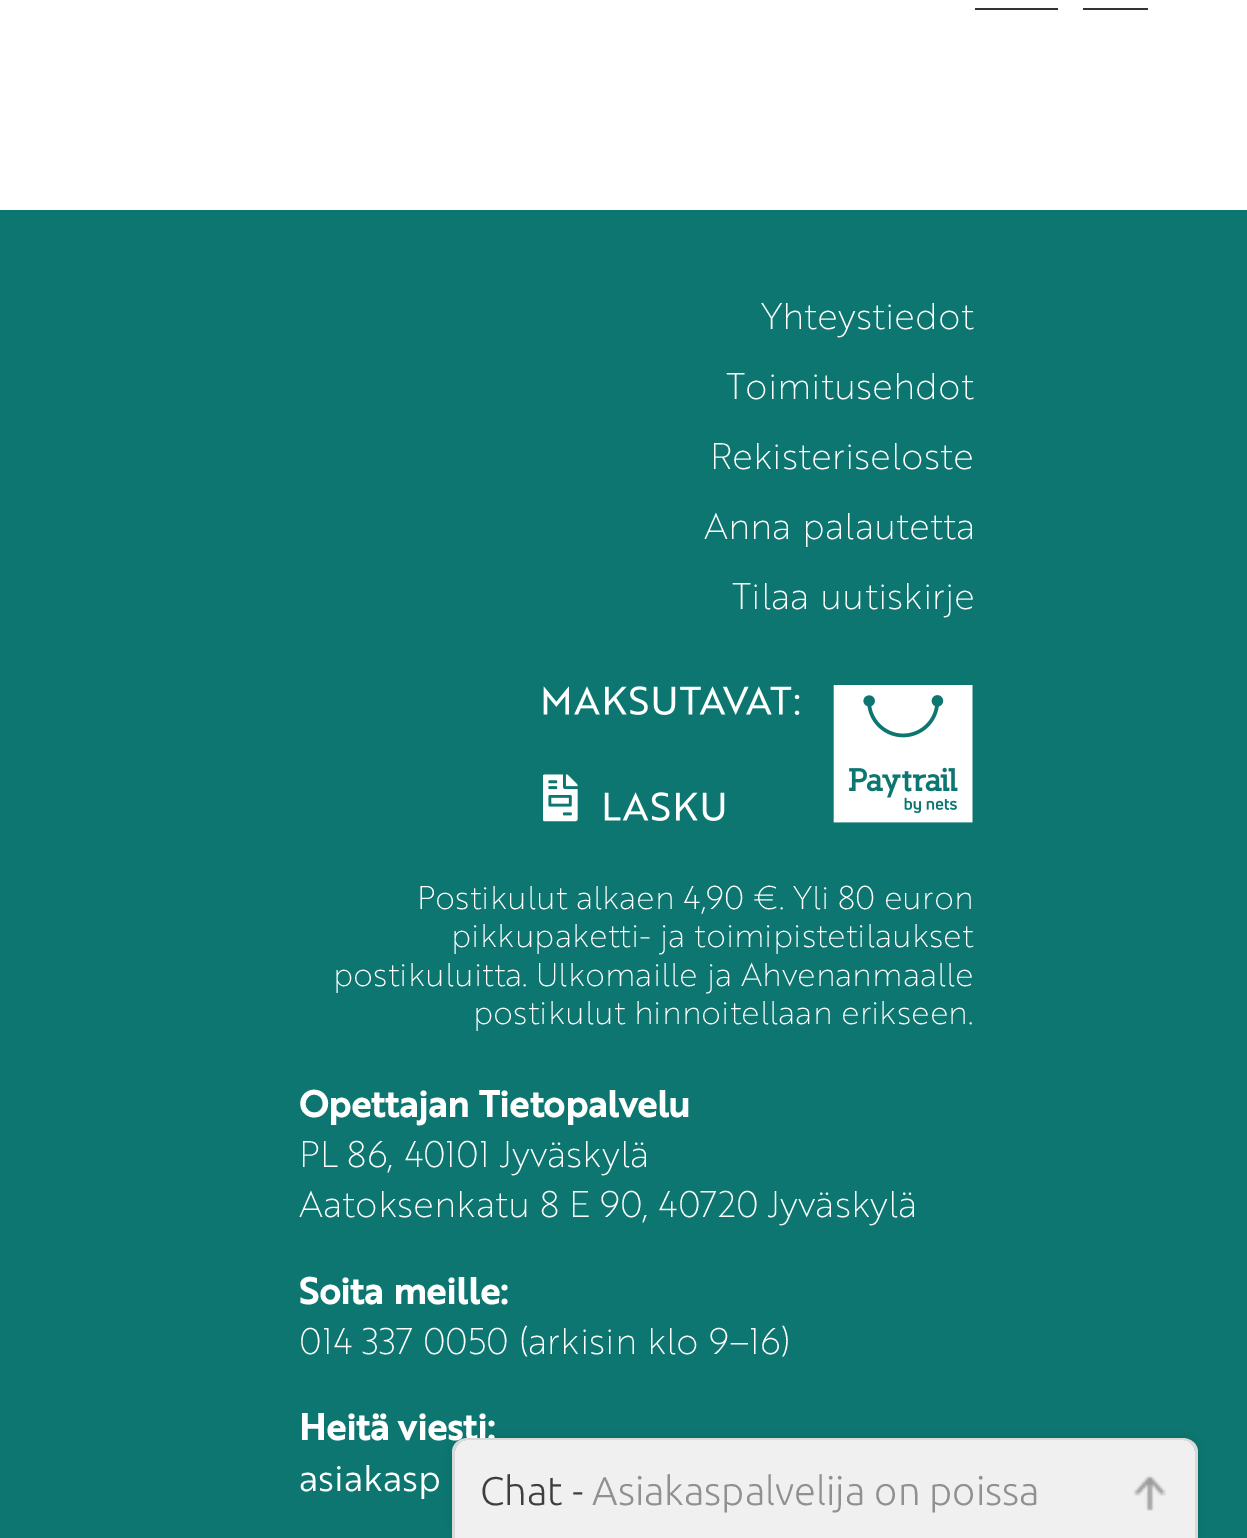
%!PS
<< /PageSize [1247 1538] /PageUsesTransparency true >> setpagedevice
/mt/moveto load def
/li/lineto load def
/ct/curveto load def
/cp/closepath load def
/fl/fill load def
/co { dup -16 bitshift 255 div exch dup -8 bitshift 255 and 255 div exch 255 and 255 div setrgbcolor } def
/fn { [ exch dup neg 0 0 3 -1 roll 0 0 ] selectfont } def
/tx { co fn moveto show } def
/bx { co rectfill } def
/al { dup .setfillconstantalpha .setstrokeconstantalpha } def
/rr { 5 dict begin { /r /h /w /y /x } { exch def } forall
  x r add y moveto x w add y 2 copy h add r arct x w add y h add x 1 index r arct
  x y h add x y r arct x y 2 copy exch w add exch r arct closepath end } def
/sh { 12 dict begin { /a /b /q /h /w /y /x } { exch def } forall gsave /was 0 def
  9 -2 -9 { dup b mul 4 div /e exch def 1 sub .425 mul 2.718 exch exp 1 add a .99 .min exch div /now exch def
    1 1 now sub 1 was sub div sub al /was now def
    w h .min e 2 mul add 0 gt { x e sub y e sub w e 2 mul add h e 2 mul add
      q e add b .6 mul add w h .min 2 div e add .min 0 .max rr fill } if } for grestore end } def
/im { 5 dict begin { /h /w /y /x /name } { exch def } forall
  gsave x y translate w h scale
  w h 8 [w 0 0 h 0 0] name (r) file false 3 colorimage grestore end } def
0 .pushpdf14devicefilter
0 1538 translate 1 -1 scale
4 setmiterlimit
0 0 1247 1538 16#FFFFFF bx
975 8 83 2 16#333333 bx
1083 8 65 2 16#333333 bx
0 210 1247 1328 16#0D7670 bx
(media/1.raw) 543 685 430 138 im
16#000000 co
453 1438 745 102 15 7.5 .1 sh
(Yhteystiedot) 761 329 /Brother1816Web-Thin 36 16#FFFFFF tx
(Toimitusehdot) 726 399 /Brother1816Web-Thin 36 16#FFFFFF tx
(Rekisteriseloste) 710 469 /Brother1816Web-Thin 36 16#FFFFFF tx
704 539 mt 1 0 32 (Anna palautetta) widthshow
732 609 mt 1 0 32 (Tilaa uutiskirje) widthshow
(Postikulut alkaen 4,90 €. Yli 80 euron) 417 909 /Brother1816Web-Thin 32 16#FFFFFF tx
(pikkupaketti- ja toimipistetilaukset) 451 947 /Brother1816Web-Thin 32 16#FFFFFF tx
(postikuluitta. Ulkomaille ja Ahvenanmaalle) 333 986 /Brother1816Web-Thin 32 16#FFFFFF tx
(postikulut hinnoitellaan erikseen.) 473 1024 /Brother1816Web-Thin 32 16#FFFFFF tx
(Opettajan Tietopalvelu) 299 1117 /Brother1816Web-Bold 36 16#FFFFFF tx
(PL 86, 40101 Jyväskylä) 299 1167 /Brother1816Web-Thin 36 16#FFFFFF tx
(Aatoksenkatu 8 E 90, 40720 Jyväskylä) 299 1217 /Brother1816Web-Thin 36 16#FFFFFF tx
(Soita meille:) 299 1304 /Brother1816Web-Bold 36 16#FFFFFF tx
(014 337 0050 \(arkisin klo 9–16\)) 299 1354 /Brother1816Web-Thin 36 16#FFFFFF tx
(Heitä viesti:) 299 1440 /Brother1816Web-Bold 36 16#FFFFFF tx
(asiakasp) 299 1491 /Brother1816Web-Regular 36 16#FFFFFF tx
16#D9D9D9 co
468 1438 mt 1182 1438 li 1191 1438 1198 1444 1198 1452 ct 1198 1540 li 452 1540 li 452 1452 li 452 1444 459 1438 468 1438 ct cp 468 1440 mt 1182 1440 li 1189 1440 1195 1446 1195 1452 ct 1195 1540 li 455 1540 li 455 1452 li 455 1446 461 1440 468 1440 ct cp eofill
16#F0F0F0 co
468 1440 mt 1182 1440 li 1189 1440 1195 1446 1195 1453 ct 1195 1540 li 455 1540 li 455 1453 li 455 1446 461 1440 468 1440 ct cp fl
(media/2.raw) 1133 1475 33 36 im
(Chat -) 480 1505 /Ubuntu-Light 40 16#3E3E3E tx
(Asiakaspalvelija on poissa) 592 1505 /Ubuntu-Light 40 16#909090 tx
.poppdf14devicefilter showpage
